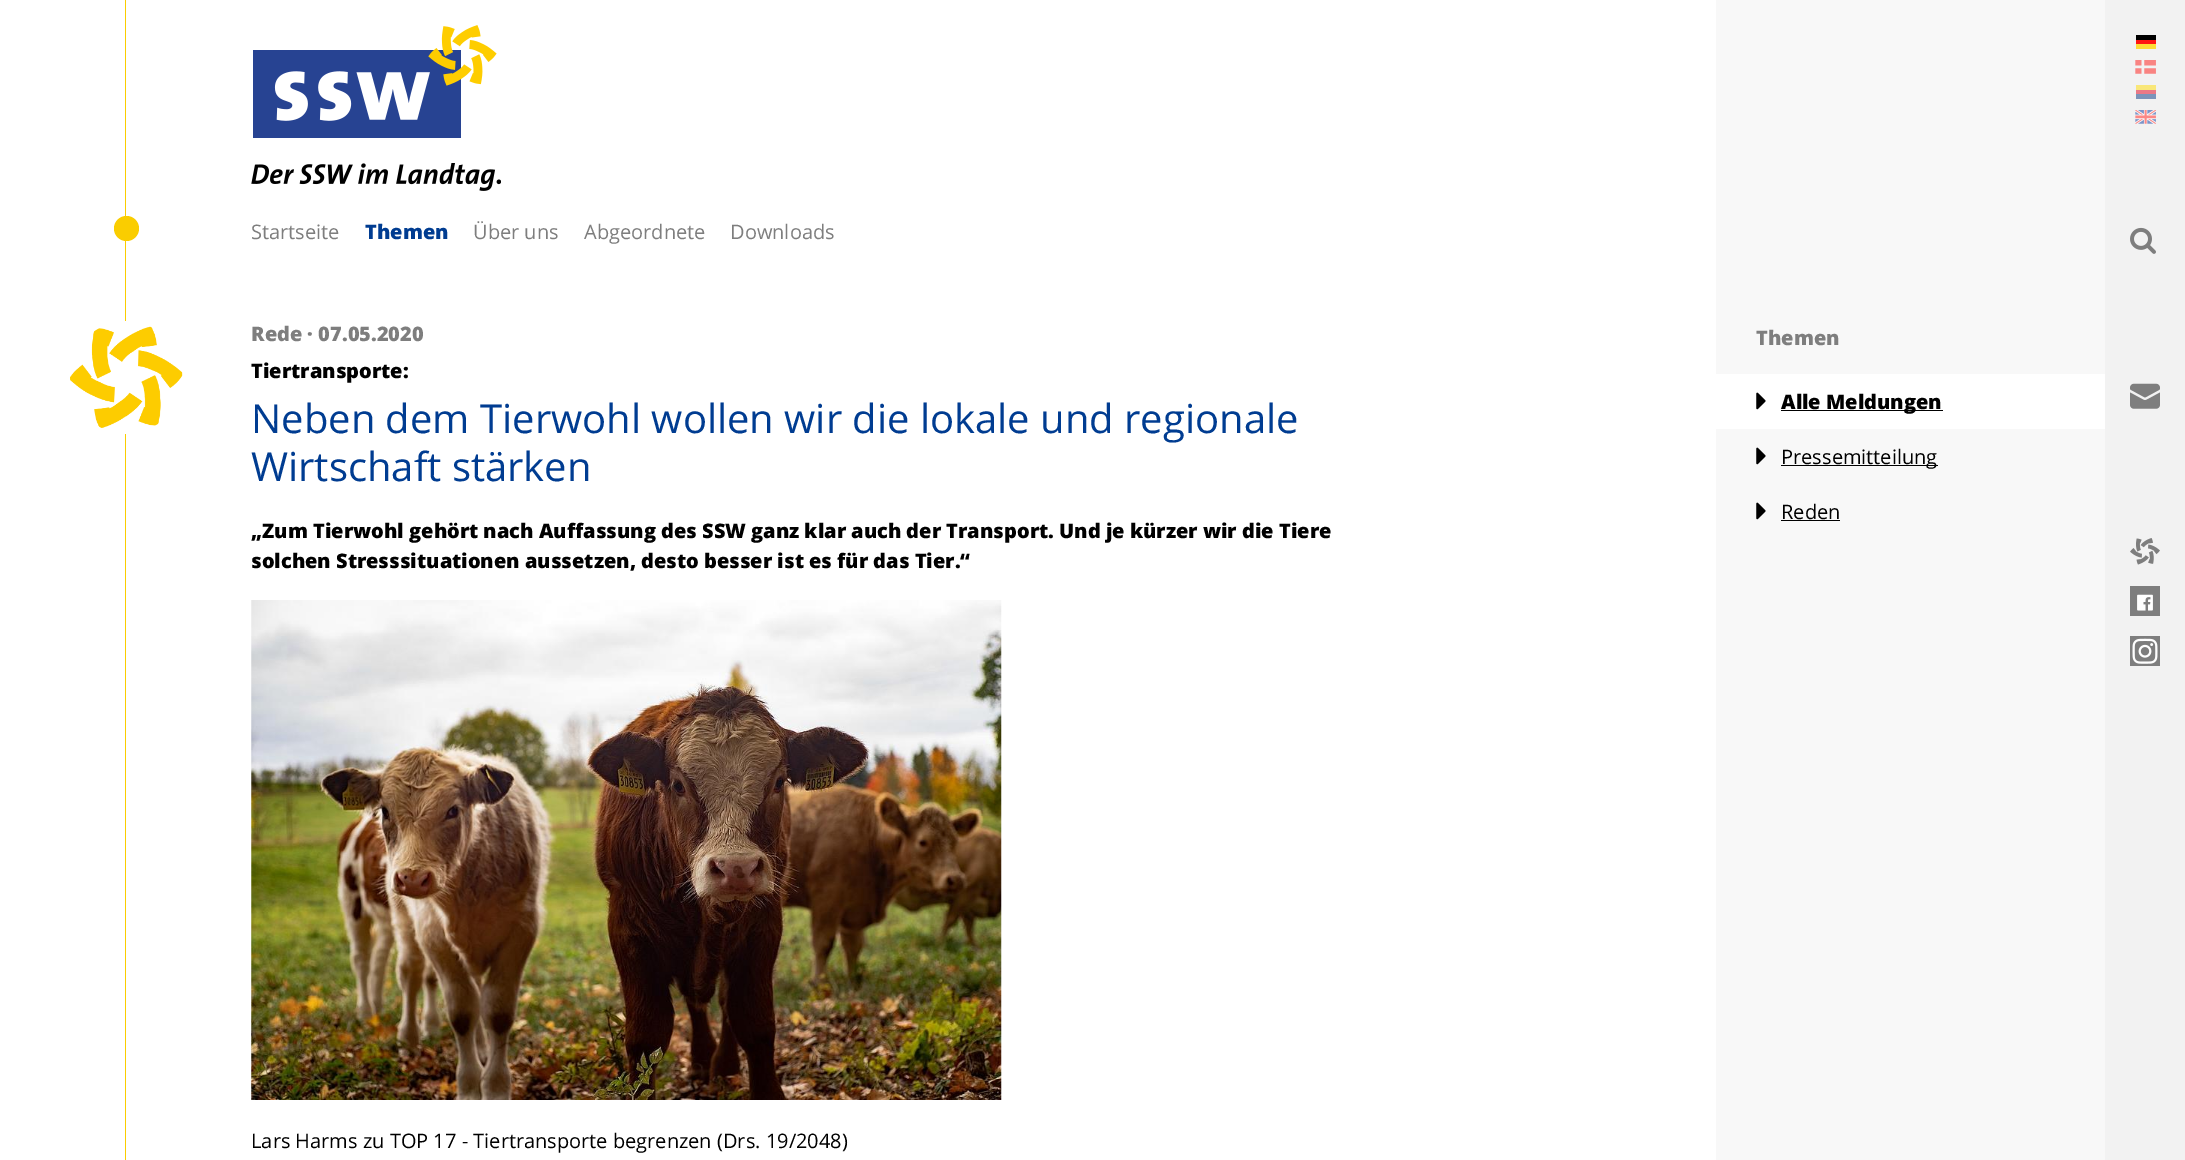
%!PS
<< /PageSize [2185 1160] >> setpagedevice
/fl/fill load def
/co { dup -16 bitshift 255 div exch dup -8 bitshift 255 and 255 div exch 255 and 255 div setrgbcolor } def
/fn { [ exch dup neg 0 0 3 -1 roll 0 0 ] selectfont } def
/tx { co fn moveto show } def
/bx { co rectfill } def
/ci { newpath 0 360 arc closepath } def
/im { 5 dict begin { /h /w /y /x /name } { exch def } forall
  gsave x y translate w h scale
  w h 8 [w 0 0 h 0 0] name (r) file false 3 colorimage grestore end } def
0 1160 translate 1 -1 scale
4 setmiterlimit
0 0 2185 1160 16#FFFFFF bx
125 0 1 1160 16#FACD00 bx
(media/1.raw) 251 25 250 166 im
126.5 228.5 12.5 ci fl
2105 0 80 1160 16#F2F2F2 bx
2136 35 20 5 16#000000 bx
2136 40 20 4 16#FF1612 bx
2136 44 20 5 16#FEDC36 bx
(media/2.raw) 2135 60 21 14 im
2136 85 20 5 16#F9E779 bx
2136 90 20 4 16#EA7986 bx
2136 94 20 5 16#7B94BA bx
(media/3.raw) 2135 110 21 14 im
(media/4.raw) 2130 227 26 27 im
(media/5.raw) 2130 383 30 26 im
(media/6.raw) 2130 538 30 27 im
2130 586 30 30 16#7E7E7E bx
(media/7.raw) 2137 594 16 17 im
2130 636 30 30 16#7E7E7E bx
(media/8.raw) 2132 638 26 26 im
16#FFFFFF co
126.5 377.5 56.5 ci fl
(media/9.raw) 70 326 113 102 im
(media/10.raw) 251 600 751 500 im
1716 0 389 1160 16#F8F8F8 bx
1716 374 389 55 16#FFFFFF bx
(media/11.raw) 1756 392 10 18 im
1781 410 162 1 16#000000 bx
(media/12.raw) 1756 447 10 18 im
1781 465 157 1 16#000000 bx
(media/12.raw) 1756 502 10 18 im
1781 520 59 1 16#000000 bx
(Startseite) 251 239 /OpenSans-Regular 20 16#7E7E7E tx
(Themen) 365 239 /OpenSans-ExtraBold 20 16#003C91 tx
(Über uns) 473 239 /OpenSans-Regular 20 16#7E7E7E tx
(Abgeordnete) 584 239 /OpenSans-Regular 20 16#7E7E7E tx
(Downloads) 730 239 /OpenSans-Regular 20 16#7E7E7E tx
(Rede · 07.05.2020) 251 341 /OpenSans-ExtraBold 20 16#7E7E7E tx
(Tiertransporte:) 251 378 /OpenSans-ExtraBold 20 16#000000 tx
(Neben dem Tierwohl wollen wir die lokale und regionale) 251 433 /OpenSans-Regular 40 16#003C91 tx
(Wirtschaft stärken) 251 481 /OpenSans-Regular 40 16#003C91 tx
(„Zum Tierwohl gehört nach Auffassung des SSW ganz klar auch der Transport. Und je kürzer wir die Tiere) 251 538 /OpenSans-ExtraBold 20 16#000000 tx
(solchen Stresssituationen aussetzen, desto besser ist es für das Tier.“) 251 568 /OpenSans-ExtraBold 20 16#000000 tx
(Lars Harms zu TOP 17 - Tiertransporte begrenzen \(Drs. 19/2048\)) 251 1148 /OpenSans-Regular 20 16#000000 tx
(Themen) 1756 345 /OpenSans-ExtraBold 20 16#7E7E7E tx
(Alle Meldungen) 1781 409 /OpenSans-ExtraBold 20 16#000000 tx
(Pressemitteilung) 1781 464 /OpenSans-Regular 20 16#000000 tx
(Reden) 1781 519 /OpenSans-Regular 20 16#000000 tx
showpage
